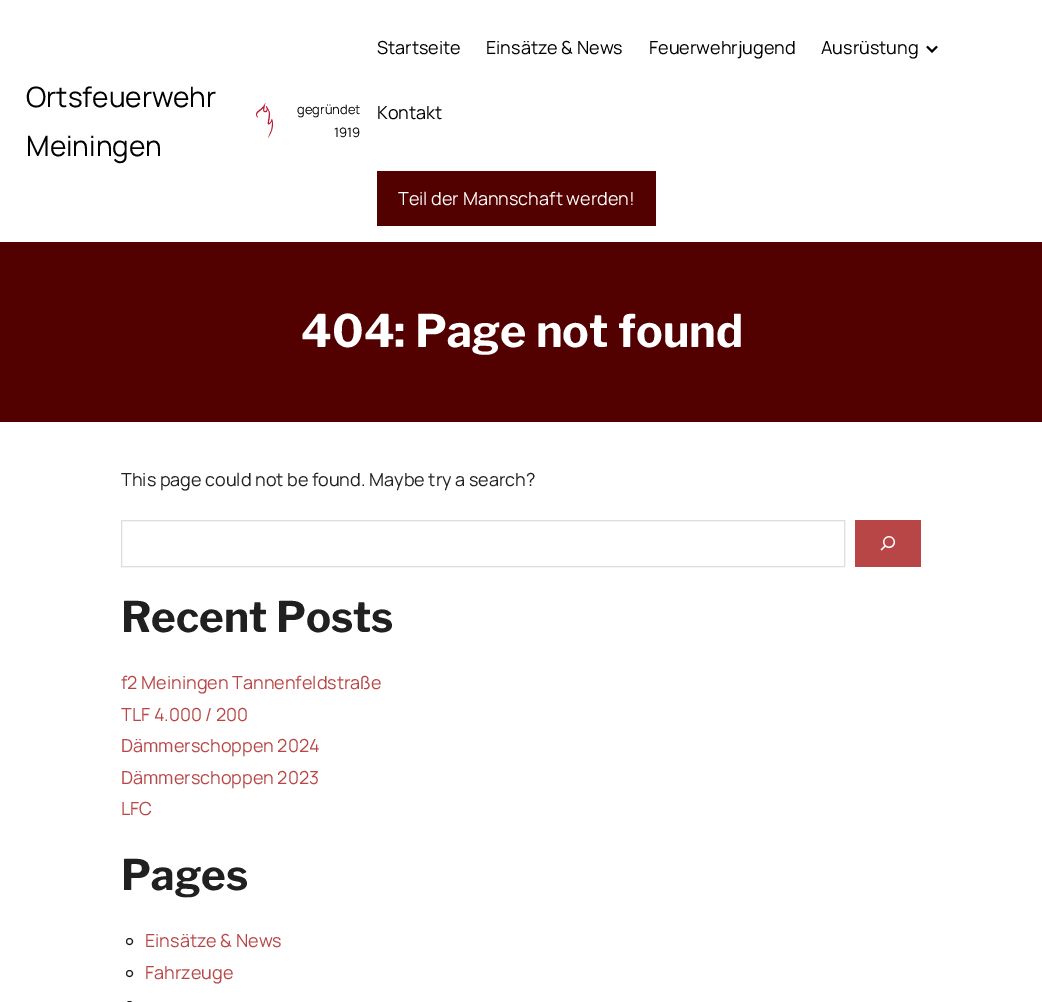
%!PS
<< /PageSize [1042 1002] >> setpagedevice
/mt/moveto load def
/li/lineto load def
/st/stroke load def
/lw/setlinewidth load def
/co { dup -16 bitshift 255 div exch dup -8 bitshift 255 and 255 div exch 255 and 255 div setrgbcolor } def
/fn { [ exch dup neg 0 0 3 -1 roll 0 0 ] selectfont } def
/tx { co fn moveto show } def
/bx { co rectfill } def
/ci { newpath 0 360 arc closepath } def
/rr { 5 dict begin { /r /h /w /y /x } { exch def } forall
  x r add y moveto x w add y 2 copy h add r arct x w add y h add x 1 index r arct
  x y h add x y r arct x y 2 copy exch w add exch r arct closepath end } def
/im { 5 dict begin { /h /w /y /x /name } { exch def } forall
  gsave x y translate w h scale
  w h 8 [w 0 0 h 0 0] name (r) file false 3 colorimage grestore end } def
0 1002 translate 1 -1 scale
4 setmiterlimit
0 0 1042 1002 16#FFFFFF bx
(media/1.raw) 256 103 17 35 im
16#000000 co
1.8 lw
927 46.5 mt 932 51.5 li 937 46.5 li st
377 171 279 55 16#530000 bx
0 242 1042 180 16#530000 bx
16#DDDDDD co
1 lw
121.5 520.5 723 46 rectstroke
855 520 66 47 16#B94646 bx
(media/2.raw) 880 536 16 15 im
16#202020 co
129.5 941.5 3 ci st
129.5 973.5 3 ci st
126.5 1001.5 6 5 3 rr st
(Ortsfeuerwehr) 26 107 /Manrope-Regular 28 16#000000 tx
(Meiningen) 26 156 /Manrope-Regular 28 16#000000 tx
(gegründet) 297 114 /Manrope-Regular 13 16#000000 tx
(1919) 334 137 /Manrope-Regular 13 16#000000 tx
(Startseite) 377 54 /Manrope-Regular 18 16#000000 tx
(Einsätze & News) 486 54 /Manrope-Regular 18 16#000000 tx
(Feuerwehrjugend) 649 54 /Manrope-Regular 18 16#000000 tx
(Ausrüstung) 821 54 /Manrope-Regular 18 16#000000 tx
(Kontakt) 377 119 /Manrope-Regular 18 16#000000 tx
(Teil der Mannschaft werden!) 398 205 /Manrope-Regular 18 16#FFFFFF tx
(404: Page not found) 301 347 /LibreFranklin-Bold 44.75 16#FFFFFF tx
(This page could not be found. Maybe try a search?) 121 486 /Manrope-Regular 18 16#202020 tx
(Recent Posts) 121 632 /LibreFranklin-Bold 42 16#202020 tx
(f2 Meiningen Tannenfeldstraße) 121 689 /Manrope-Regular 18 16#B94646 tx
(TLF 4.000 / 200) 121 721 /Manrope-Regular 18 16#B94646 tx
(Dämmerschoppen 2024) 121 752 /Manrope-Regular 18 16#B94646 tx
(Dämmerschoppen 2023) 121 784 /Manrope-Regular 18 16#B94646 tx
(LFC) 121 815 /Manrope-Regular 18 16#B94646 tx
(Pages) 121 890 /LibreFranklin-Bold 42 16#202020 tx
(Einsätze & News) 145 947 /Manrope-Regular 18 16#B94646 tx
(Fahrzeuge) 145 979 /Manrope-Regular 18 16#B94646 tx
showpage
